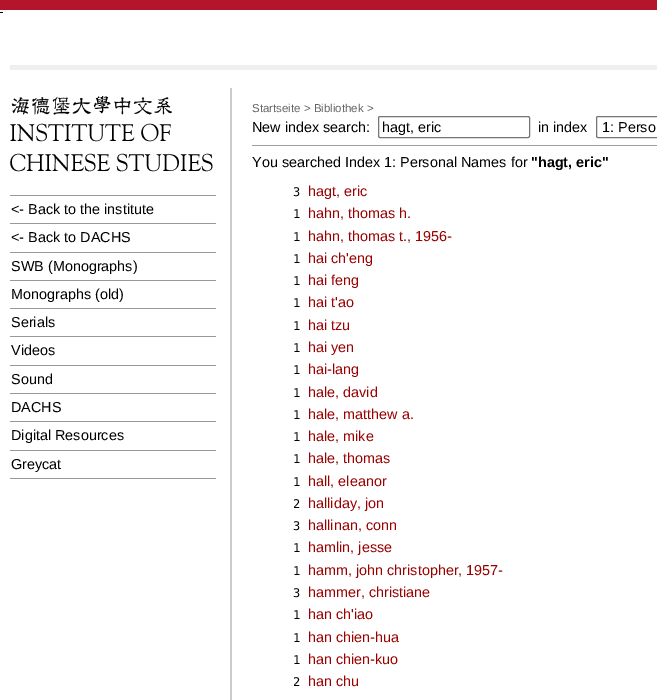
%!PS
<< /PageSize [657 700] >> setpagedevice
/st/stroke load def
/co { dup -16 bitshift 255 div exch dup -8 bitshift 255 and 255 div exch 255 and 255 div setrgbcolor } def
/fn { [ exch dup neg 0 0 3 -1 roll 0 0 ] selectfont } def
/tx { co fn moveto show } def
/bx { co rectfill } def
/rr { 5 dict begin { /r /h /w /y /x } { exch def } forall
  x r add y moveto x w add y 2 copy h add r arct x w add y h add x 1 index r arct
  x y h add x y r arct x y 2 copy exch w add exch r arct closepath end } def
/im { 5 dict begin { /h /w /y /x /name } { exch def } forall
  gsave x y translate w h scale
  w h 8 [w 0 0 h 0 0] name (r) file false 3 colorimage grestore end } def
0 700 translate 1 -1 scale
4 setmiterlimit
0 0 657 700 16#FFFFFF bx
0 0 657 10 16#B5152B bx
0 12 3 1 16#000000 bx
10 65 647 5 16#EFEFEF bx
(media/1.raw) 10 96 203 76 im
10 195 206 1 16#999999 bx
10 223 206 1 16#999999 bx
10 252 206 1 16#999999 bx
10 280 206 1 16#999999 bx
10 308 206 1 16#999999 bx
10 336 206 1 16#999999 bx
10 365 206 1 16#999999 bx
10 393 206 1 16#999999 bx
10 421 206 1 16#999999 bx
10 450 206 1 16#999999 bx
10 478 206 1 16#999999 bx
230 88 2 612 16#CCCCCC bx
16#767676 co
378.5 116.5 151 21 1.5 rr st
596.5 116.5 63 21 1.5 rr st
252 145 405 1 16#9F9F9F bx
(<- Back to the institute) 11 214 /LiberationSans-Regular 14.4 16#000000 tx
(<- Back to DACHS) 11 242 /LiberationSans-Regular 14.4 16#000000 tx
(SWB \(Monographs\)) 11 271 /LiberationSans-Regular 14.4 16#000000 tx
(Monographs \(old\)) 11 299 /LiberationSans-Regular 14.4 16#000000 tx
(Serials) 11 327 /LiberationSans-Regular 14.4 16#000000 tx
(Videos) 11 355 /LiberationSans-Regular 14.4 16#000000 tx
(Sound) 11 384 /LiberationSans-Regular 14.4 16#000000 tx
(DACHS) 11 412 /LiberationSans-Regular 14.4 16#000000 tx
(Digital Resources) 11 440 /LiberationSans-Regular 14.4 16#000000 tx
(Greycat) 11 469 /LiberationSans-Regular 14.4 16#000000 tx
(Startseite > Bibliothek >) 252 112 /LiberationSans-Regular 11.5 16#666666 tx
(New index search:) 252 132 /LiberationSans-Regular 14.4 16#000000 tx
(hagt, eric) 382 132 /LiberationSans-Regular 14.4 16#000000 tx
(in index) 538 132 /LiberationSans-Regular 14.4 16#000000 tx
(1: Perso) 602 132 /LiberationSans-Regular 14.4 16#000000 tx
(You searched Index 1: Personal Names for) 252 167 /LiberationSans-Regular 14.4 16#000000 tx
("hagt, eric") 531 167 /LiberationSans-Bold 14.4 16#000000 tx
(3) 293 196 /DejaVuSansMono-Regular 12 16#000000 tx
(hagt, eric) 308 196 /LiberationSans-Regular 14.4 16#990000 tx
(1) 293 218 /DejaVuSansMono-Regular 12 16#000000 tx
(hahn, thomas h.) 308 218 /LiberationSans-Regular 14.4 16#990000 tx
(1) 293 241 /DejaVuSansMono-Regular 12 16#000000 tx
(hahn, thomas t., 1956-) 308 241 /LiberationSans-Regular 14.4 16#990000 tx
(1) 293 263 /DejaVuSansMono-Regular 12 16#000000 tx
(hai ch'eng) 308 263 /LiberationSans-Regular 14.4 16#990000 tx
(1) 293 285 /DejaVuSansMono-Regular 12 16#000000 tx
(hai feng) 308 285 /LiberationSans-Regular 14.4 16#990000 tx
(1) 293 307 /DejaVuSansMono-Regular 12 16#000000 tx
(hai t'ao) 308 307 /LiberationSans-Regular 14.4 16#990000 tx
(1) 293 330 /DejaVuSansMono-Regular 12 16#000000 tx
(hai tzu) 308 330 /LiberationSans-Regular 14.4 16#990000 tx
(1) 293 352 /DejaVuSansMono-Regular 12 16#000000 tx
(hai yen) 308 352 /LiberationSans-Regular 14.4 16#990000 tx
(1) 293 374 /DejaVuSansMono-Regular 12 16#000000 tx
(hai-lang) 308 374 /LiberationSans-Regular 14.4 16#990000 tx
(1) 293 397 /DejaVuSansMono-Regular 12 16#000000 tx
(hale, david) 308 397 /LiberationSans-Regular 14.4 16#990000 tx
(1) 293 419 /DejaVuSansMono-Regular 12 16#000000 tx
(hale, matthew a.) 308 419 /LiberationSans-Regular 14.4 16#990000 tx
(1) 293 441 /DejaVuSansMono-Regular 12 16#000000 tx
(hale, mike) 308 441 /LiberationSans-Regular 14.4 16#990000 tx
(1) 293 463 /DejaVuSansMono-Regular 12 16#000000 tx
(hale, thomas) 308 463 /LiberationSans-Regular 14.4 16#990000 tx
(1) 293 486 /DejaVuSansMono-Regular 12 16#000000 tx
(hall, eleanor) 308 486 /LiberationSans-Regular 14.4 16#990000 tx
(2) 293 508 /DejaVuSansMono-Regular 12 16#000000 tx
(halliday, jon) 308 508 /LiberationSans-Regular 14.4 16#990000 tx
(3) 293 530 /DejaVuSansMono-Regular 12 16#000000 tx
(hallinan, conn) 308 530 /LiberationSans-Regular 14.4 16#990000 tx
(1) 293 552 /DejaVuSansMono-Regular 12 16#000000 tx
(hamlin, jesse) 308 552 /LiberationSans-Regular 14.4 16#990000 tx
(1) 293 575 /DejaVuSansMono-Regular 12 16#000000 tx
(hamm, john christopher, 1957-) 308 575 /LiberationSans-Regular 14.4 16#990000 tx
(3) 293 597 /DejaVuSansMono-Regular 12 16#000000 tx
(hammer, christiane) 308 597 /LiberationSans-Regular 14.4 16#990000 tx
(1) 293 619 /DejaVuSansMono-Regular 12 16#000000 tx
(han ch'iao) 308 619 /LiberationSans-Regular 14.4 16#990000 tx
(1) 293 642 /DejaVuSansMono-Regular 12 16#000000 tx
(han chien-hua) 308 642 /LiberationSans-Regular 14.4 16#990000 tx
(1) 293 664 /DejaVuSansMono-Regular 12 16#000000 tx
(han chien-kuo) 308 664 /LiberationSans-Regular 14.4 16#990000 tx
(2) 293 686 /DejaVuSansMono-Regular 12 16#000000 tx
(han chu) 308 686 /LiberationSans-Regular 14.4 16#990000 tx
showpage
